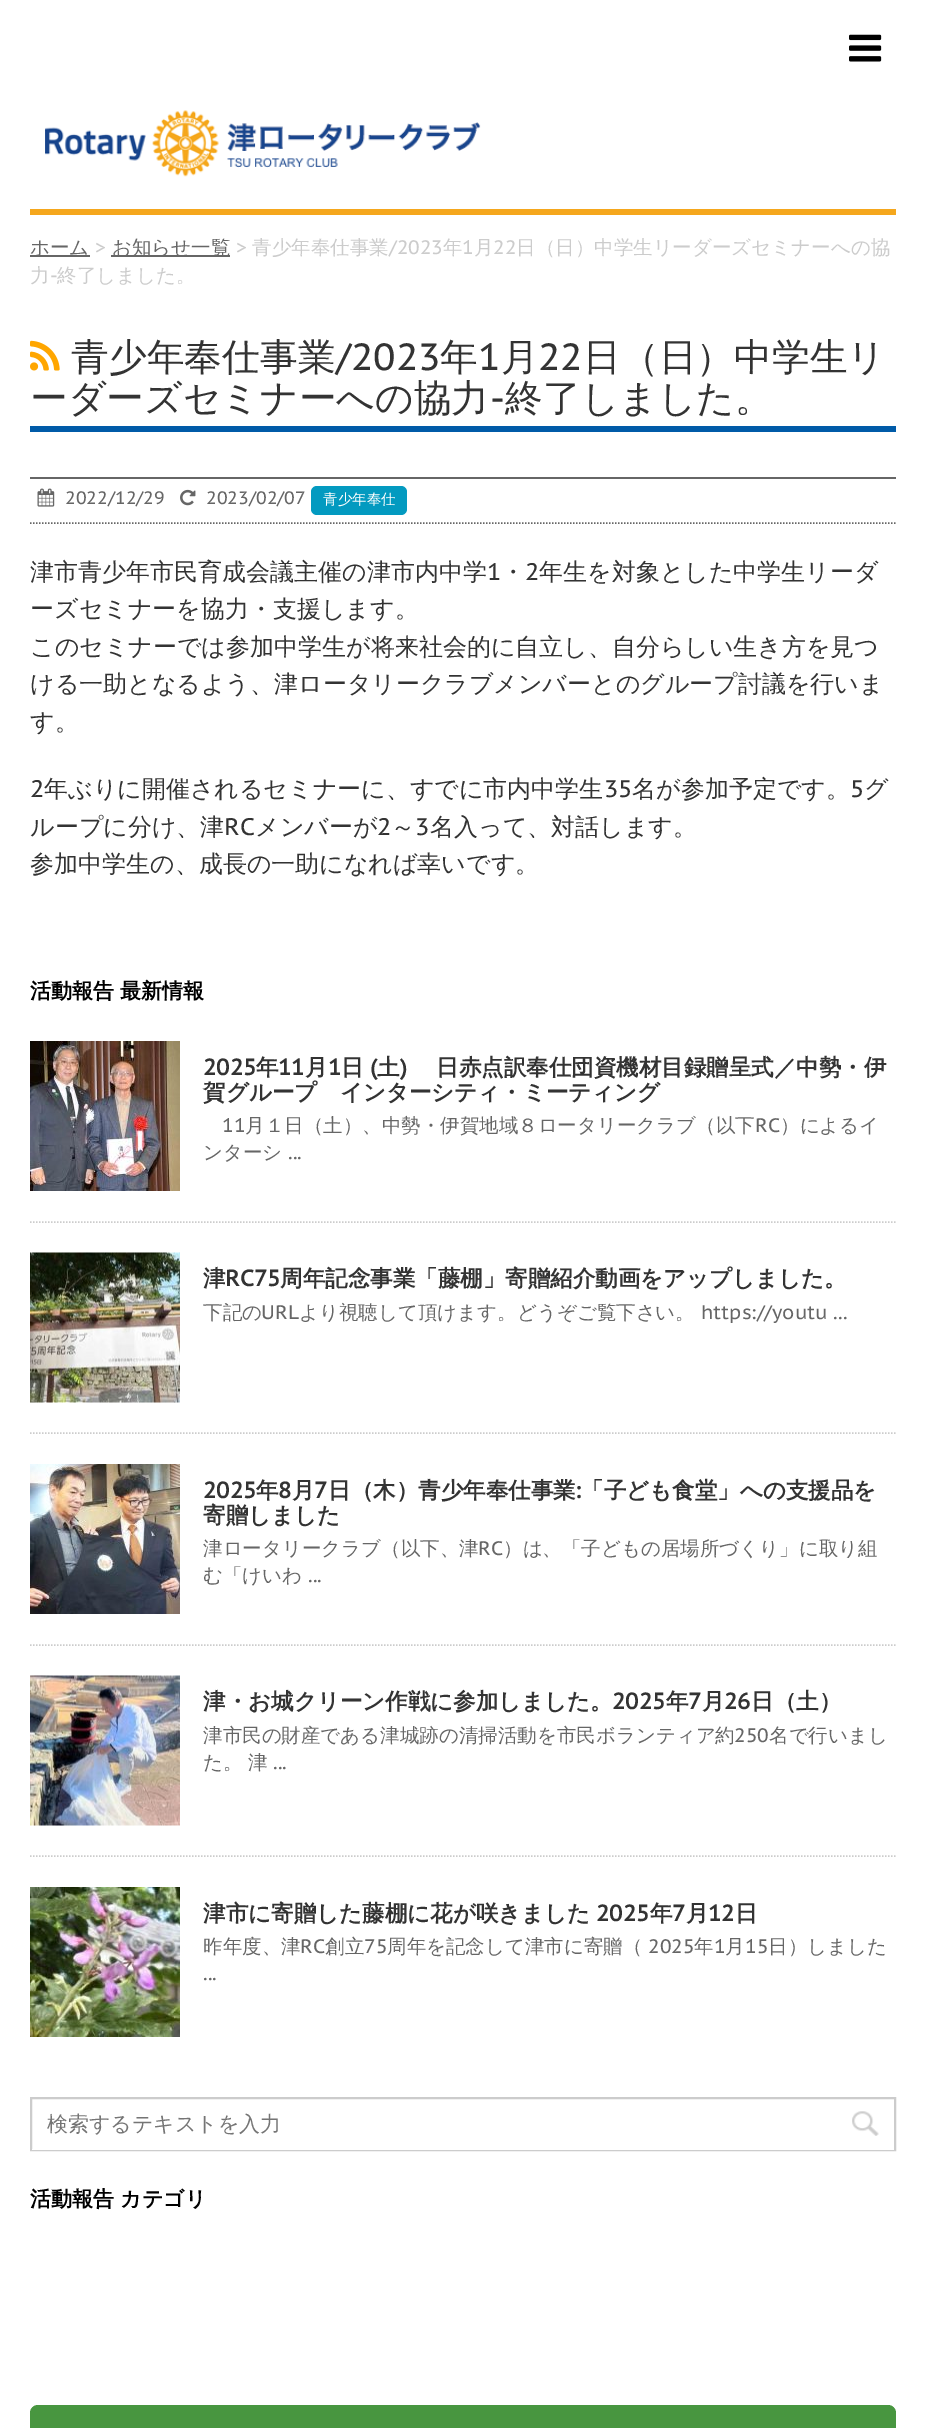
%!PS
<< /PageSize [925 2428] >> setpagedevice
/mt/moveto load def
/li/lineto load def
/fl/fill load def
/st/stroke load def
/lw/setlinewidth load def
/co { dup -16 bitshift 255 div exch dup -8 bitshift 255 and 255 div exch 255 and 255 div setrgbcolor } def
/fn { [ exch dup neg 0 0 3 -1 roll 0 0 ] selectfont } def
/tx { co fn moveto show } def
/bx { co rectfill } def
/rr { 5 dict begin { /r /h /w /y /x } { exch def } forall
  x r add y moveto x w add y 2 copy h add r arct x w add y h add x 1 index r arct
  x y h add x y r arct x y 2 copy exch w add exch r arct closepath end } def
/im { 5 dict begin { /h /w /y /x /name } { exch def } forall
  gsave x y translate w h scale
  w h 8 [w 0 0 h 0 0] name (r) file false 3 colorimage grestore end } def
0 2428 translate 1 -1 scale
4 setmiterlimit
0 0 925 2428 16#FFFFFF bx
(media/1.raw) 849 34 33 28 im
(media/2.raw) 45 110 436 67 im
30 209 866 6 16#F5A71D bx
30 255 60 2 16#666666 bx
111 255 119 2 16#666666 bx
30 426 866 6 16#005BA8 bx
(media/3.raw) 30 340 30 31 im
30 477 866 2 16#666666 bx
1.5 lw
[1.5 1.5] 0 setdash
30 523 mt 895.5 523 li st
(media/4.raw) 37 488 18 19 im
(media/5.raw) 180 489 16 17 im
16#039AC0 co
311 486 96 29 6 rr fl
16#CCCCCC co
30 1222 mt 895.5 1222 li st
(media/6.raw) 30 1041 150 150 im
30 1433 mt 895.5 1433 li st
(media/7.raw) 30 1252 150 151 im
30 1645 mt 895.5 1645 li st
(media/8.raw) 30 1464 150 150 im
30 1856 mt 895.5 1856 li st
(media/9.raw) 30 1675 150 151 im
(media/10.raw) 30 1887 150 150 im
2 lw
[] 0 setdash
31 2098 864 52 rectstroke
32 2149 862 1 16#FFFFFF bx
(media/11.raw) 852 2111 27 25 im
16#489640 co
30 2405 866 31 8 rr fl
(ホーム) 30 254 /WenQuanYiZenHei-Medium 19.5 16#666666 tx
(>) 95 254 /PTSansCaption-Regular 19.5 16#CCCCCC tx
(お知らせ一覧) 112 254 /WenQuanYiZenHei-Medium 19.5 16#666666 tx
(>) 236 254 /PTSansCaption-Regular 19.5 16#CCCCCC tx
(青少年奉仕事業) 252 254 /WenQuanYiZenHei-Medium 19.5 16#CCCCCC tx
(/2023) 389 254 /PTSansCaption-Regular 19.5 16#CCCCCC tx
(年) 443 254 /WenQuanYiZenHei-Medium 19.5 16#CCCCCC tx
(1) 462 254 /PTSansCaption-Regular 19.5 16#CCCCCC tx
(月) 474 254 /WenQuanYiZenHei-Medium 19.5 16#CCCCCC tx
(22) 493 254 /PTSansCaption-Regular 19.5 16#CCCCCC tx
(日（日）中学生リーダーズセミナーへの協) 516 254 /WenQuanYiZenHei-Medium 19.5 16#CCCCCC tx
(力) 30 282 /WenQuanYiZenHei-Medium 19.5 16#CCCCCC tx
(-) 50 282 /PTSansCaption-Regular 19.5 16#CCCCCC tx
(終了しました。) 57 282 /WenQuanYiZenHei-Medium 19.5 16#CCCCCC tx
(青少年奉仕事業) 71 370 /WenQuanYiZenHei-Medium 37.75 16#333333 tx
(/2023) 336 370 /PTSansCaption-Regular 37.75 16#333333 tx
(年) 440 370 /WenQuanYiZenHei-Medium 37.75 16#333333 tx
(1) 478 370 /PTSansCaption-Regular 37.75 16#333333 tx
(月) 501 370 /WenQuanYiZenHei-Medium 37.75 16#333333 tx
(22) 538 370 /PTSansCaption-Regular 37.75 16#333333 tx
(日（日）中学生リ) 583 370 /WenQuanYiZenHei-Medium 37.75 16#333333 tx
(ーダーズセミナーへの協力) 30 411 /WenQuanYiZenHei-Medium 37.75 16#333333 tx
(-) 490 411 /PTSansCaption-Regular 37.75 16#333333 tx
(終了しました。) 505 411 /WenQuanYiZenHei-Medium 37.75 16#333333 tx
(2022/12/29) 65 504 /PTSansCaption-Regular 18 16#666666 tx
(2023/02/07) 206 504 /PTSansCaption-Regular 18 16#666666 tx
(青少年奉仕) 323 504 /WenQuanYiZenHei-Medium 14.5 16#FFFFFF tx
(津市青少年市民育成会議主催の津市内中学) 30 580 /WenQuanYiZenHei-Medium 24 16#333333 tx
(1) 487 580 /PTSansCaption-Regular 24 16#333333 tx
(・) 501 580 /WenQuanYiZenHei-Medium 24 16#333333 tx
(2) 525 580 /PTSansCaption-Regular 24 16#333333 tx
(年生を対象とした中学生リーダ) 539 580 /WenQuanYiZenHei-Medium 24 16#333333 tx
(ーズセミナーを協力・支援します。) 30 617 /WenQuanYiZenHei-Medium 24 16#333333 tx
(このセミナーでは参加中学生が将来社会的に自立し、自分らしい生き方を見つ) 30 655 /WenQuanYiZenHei-Medium 24 16#333333 tx
(ける一助となるよう、津ロータリークラブメンバーとのグループ討議を行いま) 30 692 /WenQuanYiZenHei-Medium 24 16#333333 tx
(す。) 30 730 /WenQuanYiZenHei-Medium 24 16#333333 tx
(2) 30 797 /PTSansCaption-Regular 24 16#333333 tx
(年ぶりに開催されるセミナーに、すでに市内中学生) 44 797 /WenQuanYiZenHei-Medium 24 16#333333 tx
(35) 604 797 /PTSansCaption-Regular 24 16#333333 tx
(名が参加予定です。) 632 797 /WenQuanYiZenHei-Medium 24 16#333333 tx
(5) 850 797 /PTSansCaption-Regular 24 16#333333 tx
(グ) 864 797 /WenQuanYiZenHei-Medium 24 16#333333 tx
(ループに分け、津) 30 835 /WenQuanYiZenHei-Medium 24 16#333333 tx
(RC) 224 835 /PTSansCaption-Regular 24 16#333333 tx
(メンバーが) 255 835 /WenQuanYiZenHei-Medium 24 16#333333 tx
(2) 377 835 /PTSansCaption-Regular 24 16#333333 tx
(～) 391 835 /WenQuanYiZenHei-Medium 24 16#333333 tx
(3) 415 835 /PTSansCaption-Regular 24 16#333333 tx
(名入って、対話します。) 430 835 /WenQuanYiZenHei-Medium 24 16#333333 tx
(参加中学生の、成長の一助になれば幸いです。) 30 872 /WenQuanYiZenHei-Medium 24 16#333333 tx
(活動報告 最新情報) 30 998 /WenQuanYiZenHei-Bold 21 16#000000 tx
(2025) 203 1075 /PTSansCaption-Bold 22.5 16#333333 tx
(年) 256 1075 /WenQuanYiZenHei-Bold 22.5 16#333333 tx
(11) 278 1075 /PTSansCaption-Bold 22.5 16#333333 tx
(月) 305 1075 /WenQuanYiZenHei-Bold 22.5 16#333333 tx
(1) 328 1075 /PTSansCaption-Bold 22.5 16#333333 tx
(日) 341 1075 /WenQuanYiZenHei-Bold 22.5 16#333333 tx
(\() 370 1075 /PTSansCaption-Bold 22.5 16#333333 tx
(土) 377 1075 /WenQuanYiZenHei-Bold 22.5 16#333333 tx
(\)) 400 1075 /PTSansCaption-Bold 22.5 16#333333 tx
(日赤点訳奉仕団資機材目録贈呈式／中勢・伊) 436 1075 /WenQuanYiZenHei-Bold 22.5 16#333333 tx
(賀グループ　インターシティ・ミーティング) 203 1100 /WenQuanYiZenHei-Bold 22.5 16#333333 tx
(11) 222 1132 /PTSansCaption-Regular 19.5 16#666666 tx
(月１日（土）、中勢・伊賀地域８ロータリークラブ（以下) 245 1132 /WenQuanYiZenHei-Medium 19.5 16#666666 tx
(RC) 755 1132 /PTSansCaption-Regular 19.5 16#666666 tx
(）によるイ) 780 1132 /WenQuanYiZenHei-Medium 19.5 16#666666 tx
(ンターシ) 203 1159 /WenQuanYiZenHei-Medium 19.5 16#666666 tx
(...) 288 1159 /PTSansCaption-Regular 19.5 16#666666 tx
(津) 203 1286 /WenQuanYiZenHei-Bold 22.5 16#333333 tx
(RC75) 225 1286 /PTSansCaption-Bold 22.5 16#333333 tx
(周年記念事業「藤棚」寄贈紹介動画をアップしました。) 280 1286 /WenQuanYiZenHei-Bold 22.5 16#333333 tx
(下記の) 203 1319 /WenQuanYiZenHei-Medium 19.5 16#666666 tx
(URL) 261 1319 /PTSansCaption-Regular 19.5 16#666666 tx
(より視聴して頂けます。どうぞご覧下さい。) 299 1319 /WenQuanYiZenHei-Medium 19.5 16#666666 tx
(https://youtu ...) 701 1319 /PTSansCaption-Regular 19.5 16#666666 tx
(2025) 203 1498 /PTSansCaption-Bold 22.5 16#333333 tx
(年) 256 1498 /WenQuanYiZenHei-Bold 22.5 16#333333 tx
(8) 278 1498 /PTSansCaption-Bold 22.5 16#333333 tx
(月) 292 1498 /WenQuanYiZenHei-Bold 22.5 16#333333 tx
(7) 314 1498 /PTSansCaption-Bold 22.5 16#333333 tx
(日（木）青少年奉仕事業) 328 1498 /WenQuanYiZenHei-Bold 22.5 16#333333 tx
(:) 575 1498 /PTSansCaption-Bold 22.5 16#333333 tx
(「子ども食堂」への支援品を) 581 1498 /WenQuanYiZenHei-Bold 22.5 16#333333 tx
(寄贈しました) 203 1523 /WenQuanYiZenHei-Bold 22.5 16#333333 tx
(津ロータリークラブ（以下、津) 203 1555 /WenQuanYiZenHei-Medium 19.5 16#666666 tx
(RC) 478 1555 /PTSansCaption-Regular 19.5 16#666666 tx
(）は、「子どもの居場所づくり」に取り組) 503 1555 /WenQuanYiZenHei-Medium 19.5 16#666666 tx
(む「けいわ) 203 1582 /WenQuanYiZenHei-Medium 19.5 16#666666 tx
(...) 308 1582 /PTSansCaption-Regular 19.5 16#666666 tx
(津・お城クリーン作戦に参加しました。) 203 1709 /WenQuanYiZenHei-Bold 22.5 16#333333 tx
(2025) 612 1709 /PTSansCaption-Bold 22.5 16#333333 tx
(年) 666 1709 /WenQuanYiZenHei-Bold 22.5 16#333333 tx
(7) 688 1709 /PTSansCaption-Bold 22.5 16#333333 tx
(月) 702 1709 /WenQuanYiZenHei-Bold 22.5 16#333333 tx
(26) 724 1709 /PTSansCaption-Bold 22.5 16#333333 tx
(日（土）) 751 1709 /WenQuanYiZenHei-Bold 22.5 16#333333 tx
(津市民の財産である津城跡の清掃活動を市民ボランティア約) 203 1742 /WenQuanYiZenHei-Medium 19.5 16#666666 tx
(250) 734 1742 /PTSansCaption-Regular 19.5 16#666666 tx
(名で行いまし) 769 1742 /WenQuanYiZenHei-Medium 19.5 16#666666 tx
(た。 津) 203 1769 /WenQuanYiZenHei-Medium 19.5 16#666666 tx
(...) 273 1769 /PTSansCaption-Regular 19.5 16#666666 tx
(津市に寄贈した藤棚に花が咲きました) 203 1921 /WenQuanYiZenHei-Bold 22.5 16#333333 tx
(2025) 596 1921 /PTSansCaption-Bold 22.5 16#333333 tx
(年) 650 1921 /WenQuanYiZenHei-Bold 22.5 16#333333 tx
(7) 672 1921 /PTSansCaption-Bold 22.5 16#333333 tx
(月) 686 1921 /WenQuanYiZenHei-Bold 22.5 16#333333 tx
(12) 708 1921 /PTSansCaption-Bold 22.5 16#333333 tx
(日) 735 1921 /WenQuanYiZenHei-Bold 22.5 16#333333 tx
(昨年度、津) 203 1953 /WenQuanYiZenHei-Medium 19.5 16#666666 tx
(RC) 300 1953 /PTSansCaption-Regular 19.5 16#666666 tx
(創立) 325 1953 /WenQuanYiZenHei-Medium 19.5 16#666666 tx
(75) 364 1953 /PTSansCaption-Regular 19.5 16#666666 tx
(周年を記念して津市に寄贈（) 387 1953 /WenQuanYiZenHei-Medium 19.5 16#666666 tx
(2025) 648 1953 /PTSansCaption-Regular 19.5 16#666666 tx
(年) 694 1953 /WenQuanYiZenHei-Medium 19.5 16#666666 tx
(1) 714 1953 /PTSansCaption-Regular 19.5 16#666666 tx
(月) 725 1953 /WenQuanYiZenHei-Medium 19.5 16#666666 tx
(15) 745 1953 /PTSansCaption-Regular 19.5 16#666666 tx
(日）しました) 768 1953 /WenQuanYiZenHei-Medium 19.5 16#666666 tx
(...) 203 1980 /PTSansCaption-Regular 19.5 16#666666 tx
(検索するテキストを入力) 47 2131 /WenQuanYiZenHei-Medium 21 16#757575 tx
(活動報告 カテゴリ) 30 2206 /WenQuanYiZenHei-Bold 21 16#000000 tx
showpage
